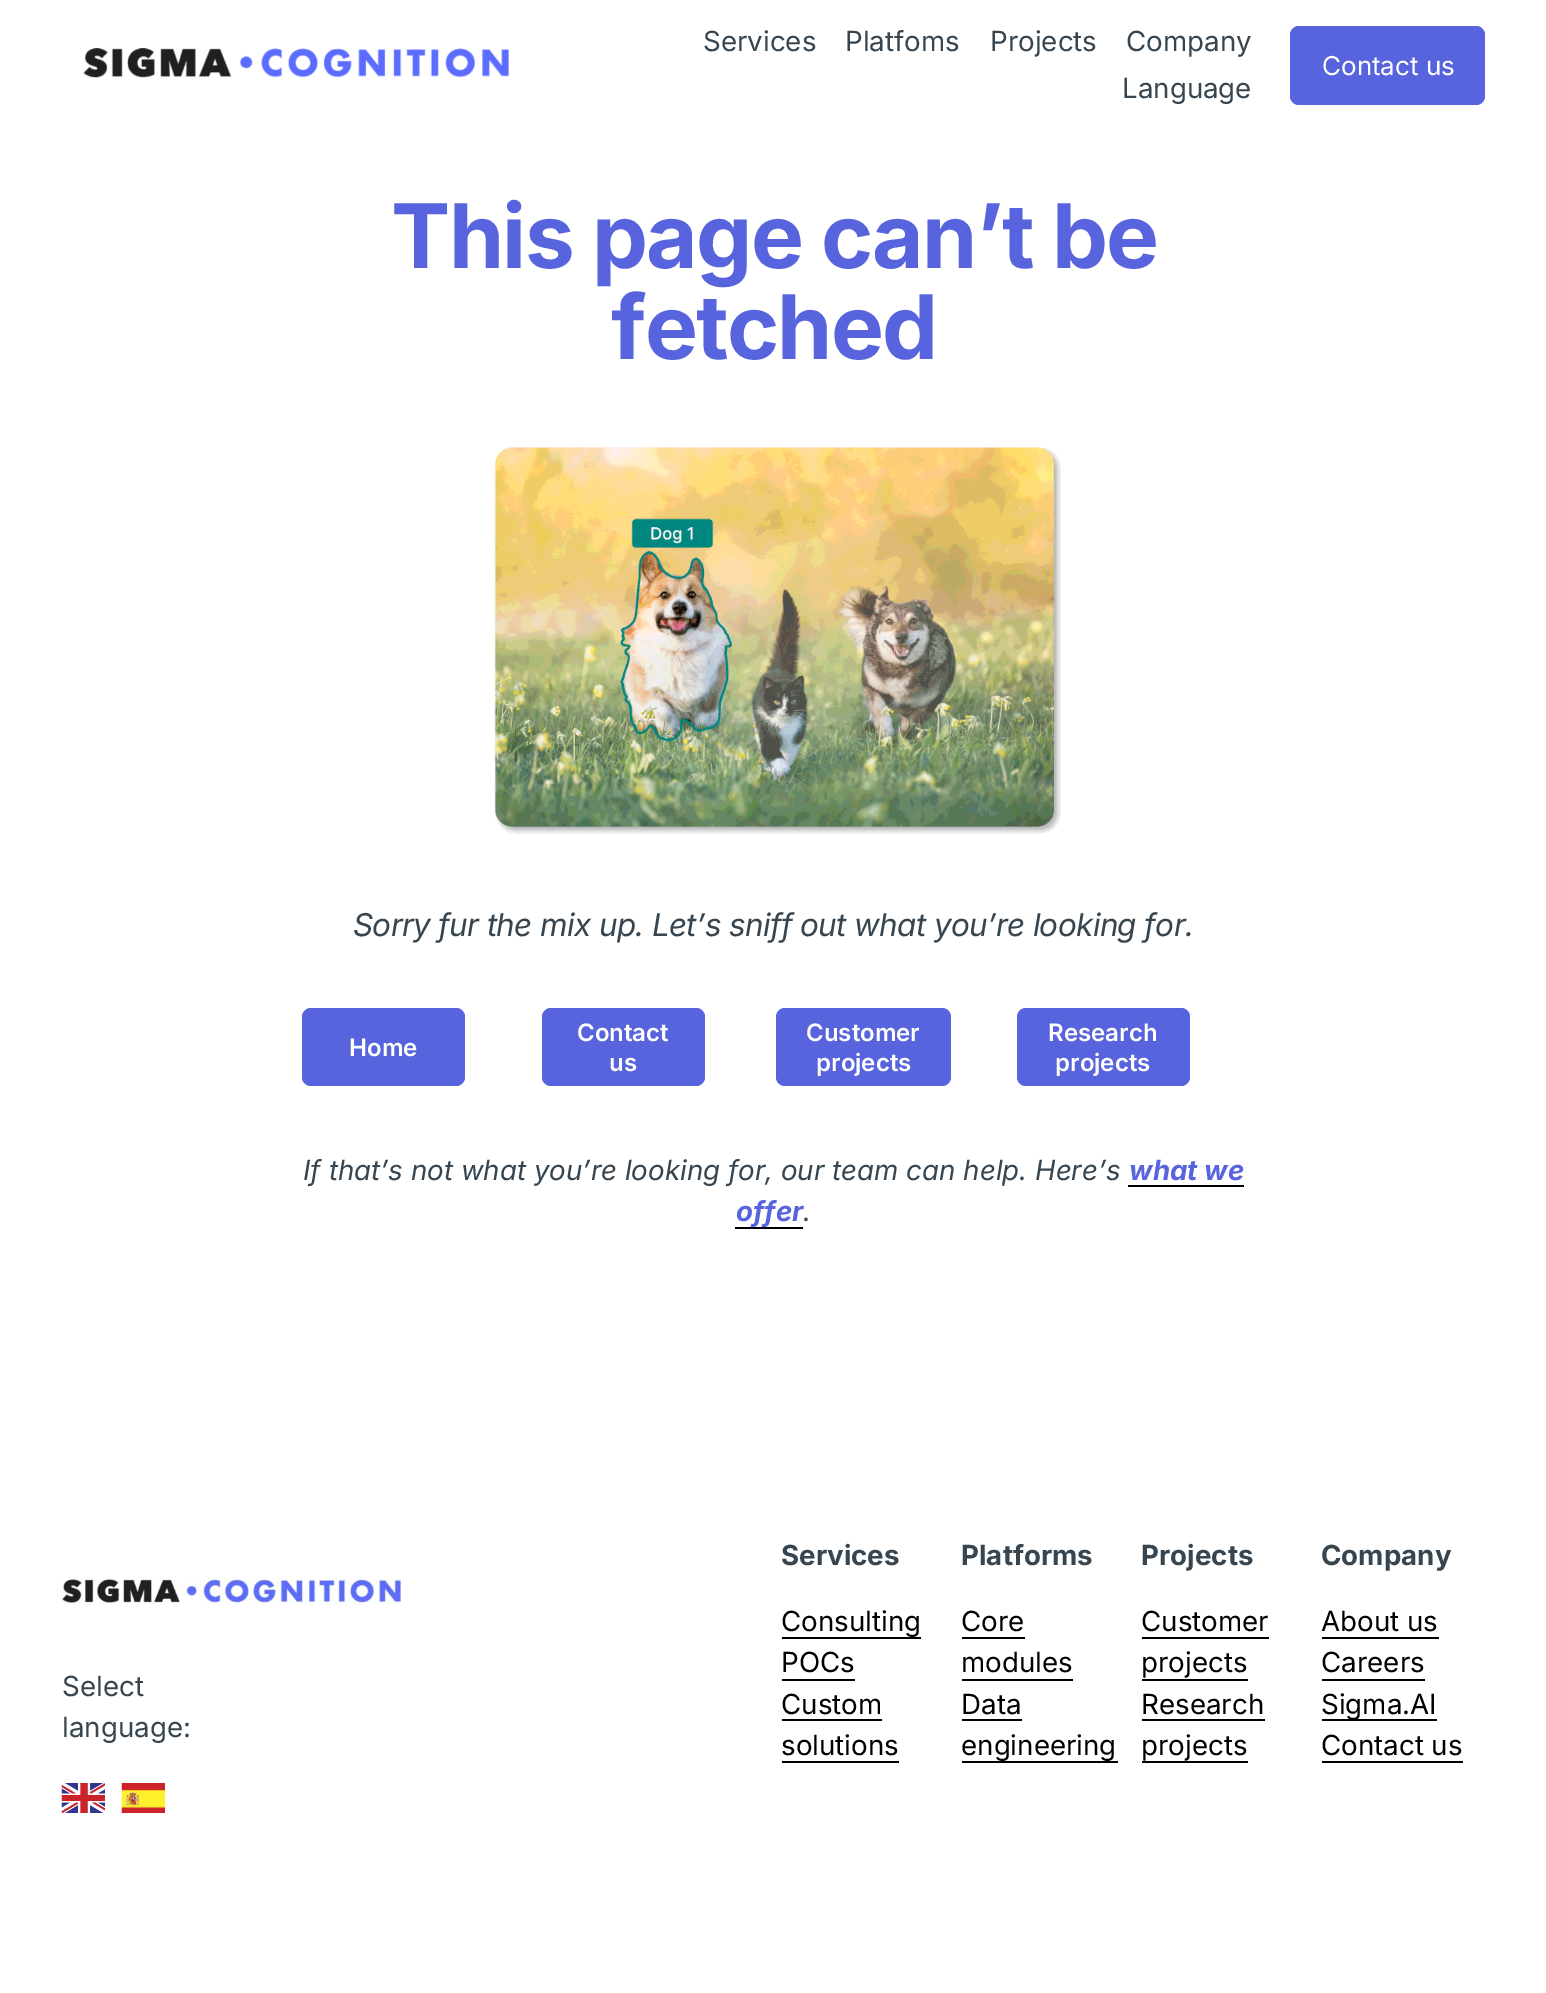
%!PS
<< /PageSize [1546 1993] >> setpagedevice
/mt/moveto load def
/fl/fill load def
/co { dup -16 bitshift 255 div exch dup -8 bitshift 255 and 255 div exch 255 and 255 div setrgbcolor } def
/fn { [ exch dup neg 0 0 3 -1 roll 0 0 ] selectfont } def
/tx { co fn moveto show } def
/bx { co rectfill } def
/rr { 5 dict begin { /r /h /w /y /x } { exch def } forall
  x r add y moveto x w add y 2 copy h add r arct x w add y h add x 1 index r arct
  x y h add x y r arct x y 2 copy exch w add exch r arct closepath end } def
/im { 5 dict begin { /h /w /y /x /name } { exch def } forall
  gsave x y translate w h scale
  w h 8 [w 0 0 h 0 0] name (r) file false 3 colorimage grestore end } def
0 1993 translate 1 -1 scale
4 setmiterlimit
0 0 1546 1993 16#FFFFFF bx
(media/1.raw) 83 48 426 30 im
16#5764DD co
1290 26 195 79 9 rr fl
(media/2.raw) 494 447 567 387 im
302 1008 163 78 9 rr fl
542 1008 163 78 9 rr fl
776 1008 175 78 9 rr fl
1017 1008 173 78 9 rr fl
1128 1185 116 2 16#000000 bx
735 1227 68 2 16#000000 bx
(media/3.raw) 62 1577 340 28 im
782 1637 139 2 16#000000 bx
782 1679 73 2 16#000000 bx
782 1719 100 2 16#000000 bx
782 1761 117 2 16#000000 bx
962 1637 63 2 16#000000 bx
962 1679 111 2 16#000000 bx
962 1719 60 2 16#000000 bx
962 1761 156 2 16#000000 bx
1142 1637 127 2 16#000000 bx
1142 1679 106 2 16#000000 bx
1142 1719 123 2 16#000000 bx
1142 1761 106 2 16#000000 bx
1322 1637 117 2 16#000000 bx
1322 1679 103 2 16#000000 bx
1322 1719 115 2 16#000000 bx
1322 1761 141 2 16#000000 bx
(media/4.raw) 61 1783 44 30 im
(media/5.raw) 121 1783 44 30 im
(Services) 703 51 /Inter-Regular 27.7 16#36454F tx
(Platfoms) 845 51 /Inter-Regular 27.7 16#36454F tx
(Projects) 990 51 /Inter-Regular 27.7 16#36454F tx
(Company) 1126 51 /Inter-Regular 27.7 16#36454F tx
(Language) 1122 98 /Inter-Regular 27.7 16#36454F tx
(Contact us) 1322 75 /Inter-Regular 26 16#FFFFFF tx
/Inter-Bold 89 fn
16#5764DD co
391 268 mt -1.75 0 (This page can’t be) ashow
611 359 mt -1.75 0 (fetched) ashow
/Inter-Italic 31.4 fn
16#36454F co
353 936 mt -.63 0 (Sorry fur the mix up. Let’s sniff out what you’re looking for.) ashow
(Home) 349 1056 /Inter-SemiBold 24 16#FFFFFF tx
(Contact) 577 1041 /Inter-SemiBold 24 16#FFFFFF tx
(us) 609 1071 /Inter-SemiBold 24 16#FFFFFF tx
(Customer) 806 1041 /Inter-SemiBold 24 16#FFFFFF tx
(projects) 816 1071 /Inter-SemiBold 24 16#FFFFFF tx
(Research) 1048 1041 /Inter-SemiBold 24 16#FFFFFF tx
(projects) 1055 1071 /Inter-SemiBold 24 16#FFFFFF tx
(If that’s not what you’re looking for, our team can help. Here’s) 303 1180 /Inter-Italic 27.7 16#36454F tx
(what we) 1129 1180 /Inter-BoldItalic 27.7 16#5764DD tx
(offer) 736 1221 /Inter-BoldItalic 27.7 16#5764DD tx
(.) 803 1221 /Inter-Italic 27.7 16#36454F tx
(Services) 781 1565 /Inter-Bold 27.7 16#36454F tx
(Consulting) 781 1631 /Inter-Regular 27.7 16#000000 tx
(POCs) 781 1672 /Inter-Regular 27.7 16#000000 tx
(Custom) 781 1714 /Inter-Regular 27.7 16#000000 tx
(solutions) 781 1755 /Inter-Regular 27.7 16#000000 tx
(Platforms) 961 1565 /Inter-Bold 27.7 16#36454F tx
(Core) 961 1631 /Inter-Regular 27.7 16#000000 tx
(modules) 961 1672 /Inter-Regular 27.7 16#000000 tx
(Data) 961 1714 /Inter-Regular 27.7 16#000000 tx
(engineering) 961 1755 /Inter-Regular 27.7 16#000000 tx
(Projects) 1141 1565 /Inter-Bold 27.7 16#36454F tx
(Customer) 1141 1631 /Inter-Regular 27.7 16#000000 tx
(projects) 1141 1672 /Inter-Regular 27.7 16#000000 tx
(Research) 1141 1714 /Inter-Regular 27.7 16#000000 tx
(projects) 1141 1755 /Inter-Regular 27.7 16#000000 tx
(Company) 1321 1565 /Inter-Bold 27.7 16#36454F tx
(About us) 1321 1631 /Inter-Regular 27.7 16#000000 tx
(Careers) 1321 1672 /Inter-Regular 27.7 16#000000 tx
(Sigma.AI) 1321 1714 /Inter-Regular 27.7 16#000000 tx
(Contact us) 1321 1755 /Inter-Regular 27.7 16#000000 tx
(Select) 62 1696 /Inter-Regular 27.7 16#36454F tx
(language:) 62 1737 /Inter-Regular 27.7 16#36454F tx
showpage
